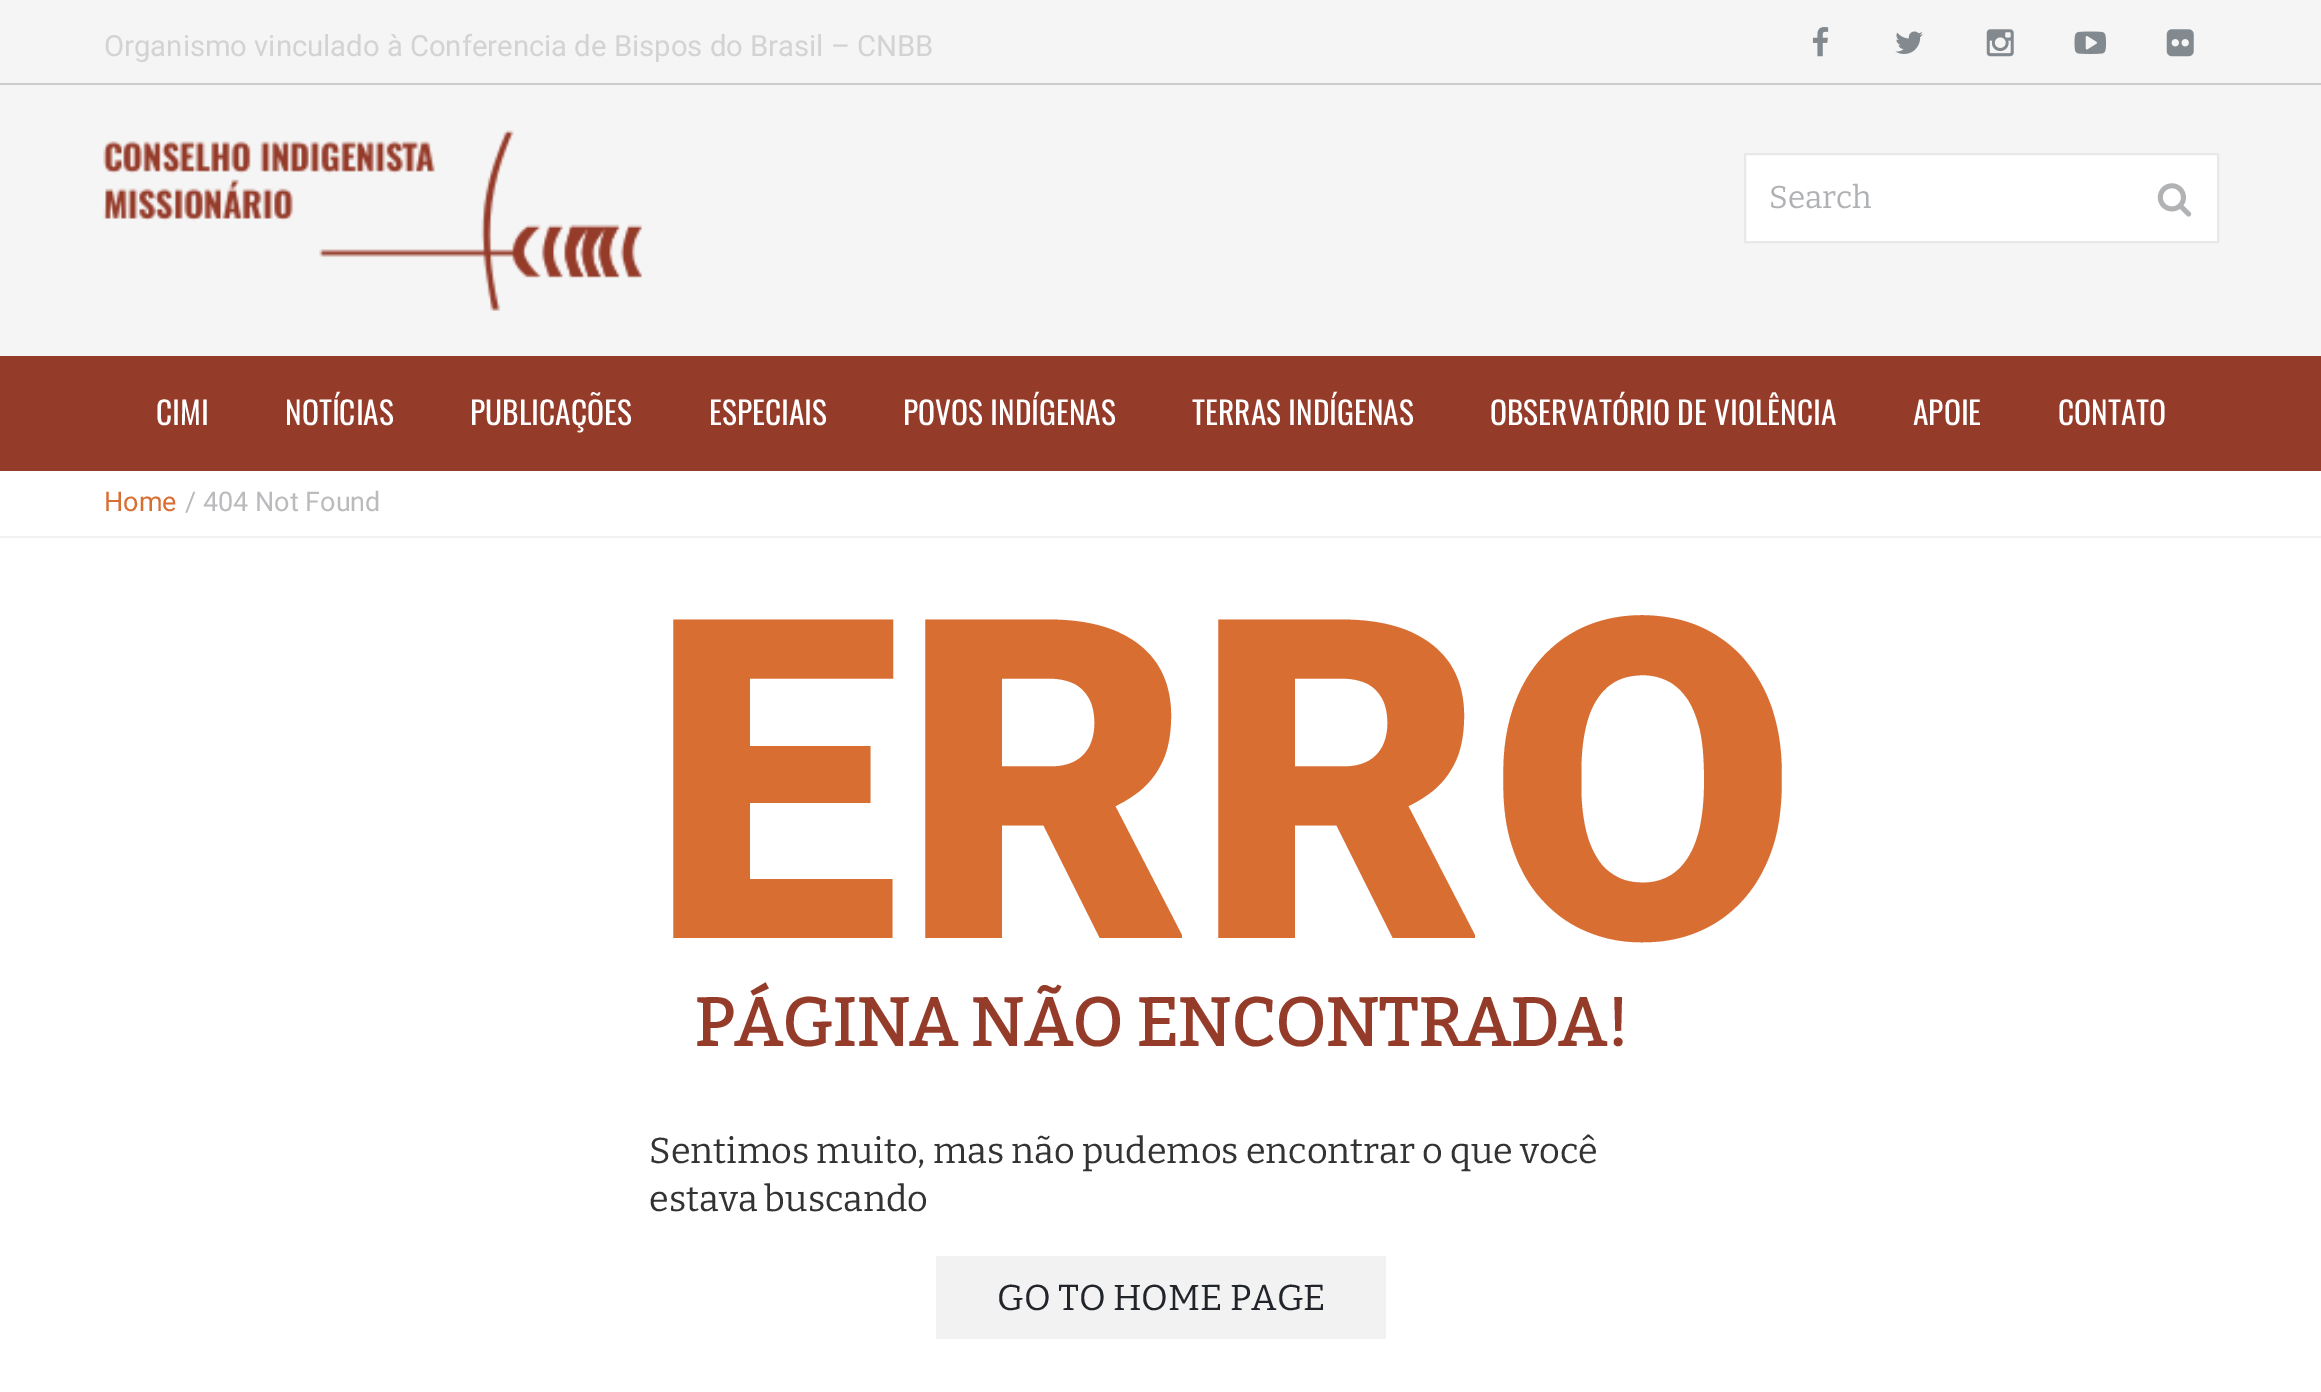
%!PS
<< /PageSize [2321 1392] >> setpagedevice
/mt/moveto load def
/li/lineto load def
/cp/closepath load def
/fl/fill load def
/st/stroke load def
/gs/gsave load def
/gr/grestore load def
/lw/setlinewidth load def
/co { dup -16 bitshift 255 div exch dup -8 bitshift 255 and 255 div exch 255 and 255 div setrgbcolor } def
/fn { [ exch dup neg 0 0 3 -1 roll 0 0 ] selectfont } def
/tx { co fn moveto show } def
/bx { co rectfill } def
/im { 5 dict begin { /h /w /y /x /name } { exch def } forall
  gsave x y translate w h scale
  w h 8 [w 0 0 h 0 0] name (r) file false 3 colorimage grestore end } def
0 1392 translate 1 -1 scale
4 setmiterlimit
0 0 2321 1392 16#FFFFFF bx
0 0 2321 356 16#F5F5F5 bx
0 83 2321 2 16#CCCCCC bx
(media/1.raw) 1812 27 17 30 im
(media/2.raw) 1895 31 28 23 im
(media/3.raw) 1986 29 28 28 im
(media/4.raw) 2074 31 32 23 im
(media/5.raw) 2166 29 28 28 im
(media/6.raw) 103 130 540 181 im
16#FFFFFF co
1745 154 mt 2218 154 li 2218 242 li 1745 242 li cp gs fl gr
16#E8E8E8 co
2 lw
st
(media/7.raw) 2157 183 35 34 im
0 356 2321 115 16#953B2A bx
0 536 2321 2 16#F2F2F2 bx
936 1256 450 83 16#F2F2F2 bx
(Organismo vinculado à Conferencia de Bispos do Brasil – CNBB) 104 56 /Roboto-Regular 29.25 16#D3D3D3 tx
(Search) 1769 208 /Bitter-Thin 31.5 16#B0B1B4 tx
(CIMI) 156 425 /Oswald-Regular 31.5 16#FFFFFF tx
(NOTÍCIAS) 285 425 /Oswald-Regular 31.5 16#FFFFFF tx
(PUBLICAÇÕES) 470 425 /Oswald-Regular 31.5 16#FFFFFF tx
(ESPECIAIS) 709 425 /Oswald-Regular 31.5 16#FFFFFF tx
(POVOS INDÍGENAS) 903 425 /Oswald-Regular 31.5 16#FFFFFF tx
(TERRAS INDÍGENAS) 1192 425 /Oswald-Regular 31.5 16#FFFFFF tx
(OBSERVATÓRIO DE VIOLÊNCIA) 1490 425 /Oswald-Regular 31.5 16#FFFFFF tx
(APOIE) 1913 425 /Oswald-Regular 31.5 16#FFFFFF tx
(CONTATO) 2058 425 /Oswald-Regular 31.5 16#FFFFFF tx
(Home) 104 511 /Roboto-Regular 27 16#D86E32 tx
(/ 404 Not Found) 185 511 /Roboto-Regular 27 16#BBBBBE tx
(ERRO) 649 938 /Roboto-Black 450 16#D86E32 tx
(PÁGINA NÃO ENCONTRADA!) 694 1046 /Bitter-Bold 67.5 16#953B2A tx
(Sentimos muito, mas não pudemos encontrar o que você) 649 1163 /Bitter-Thin 36 16#333333 tx
(estava buscando) 649 1211 /Bitter-Thin 36 16#333333 tx
(GO TO HOME PAGE) 997 1310 /Bitter-Thin 36 16#212428 tx
showpage
